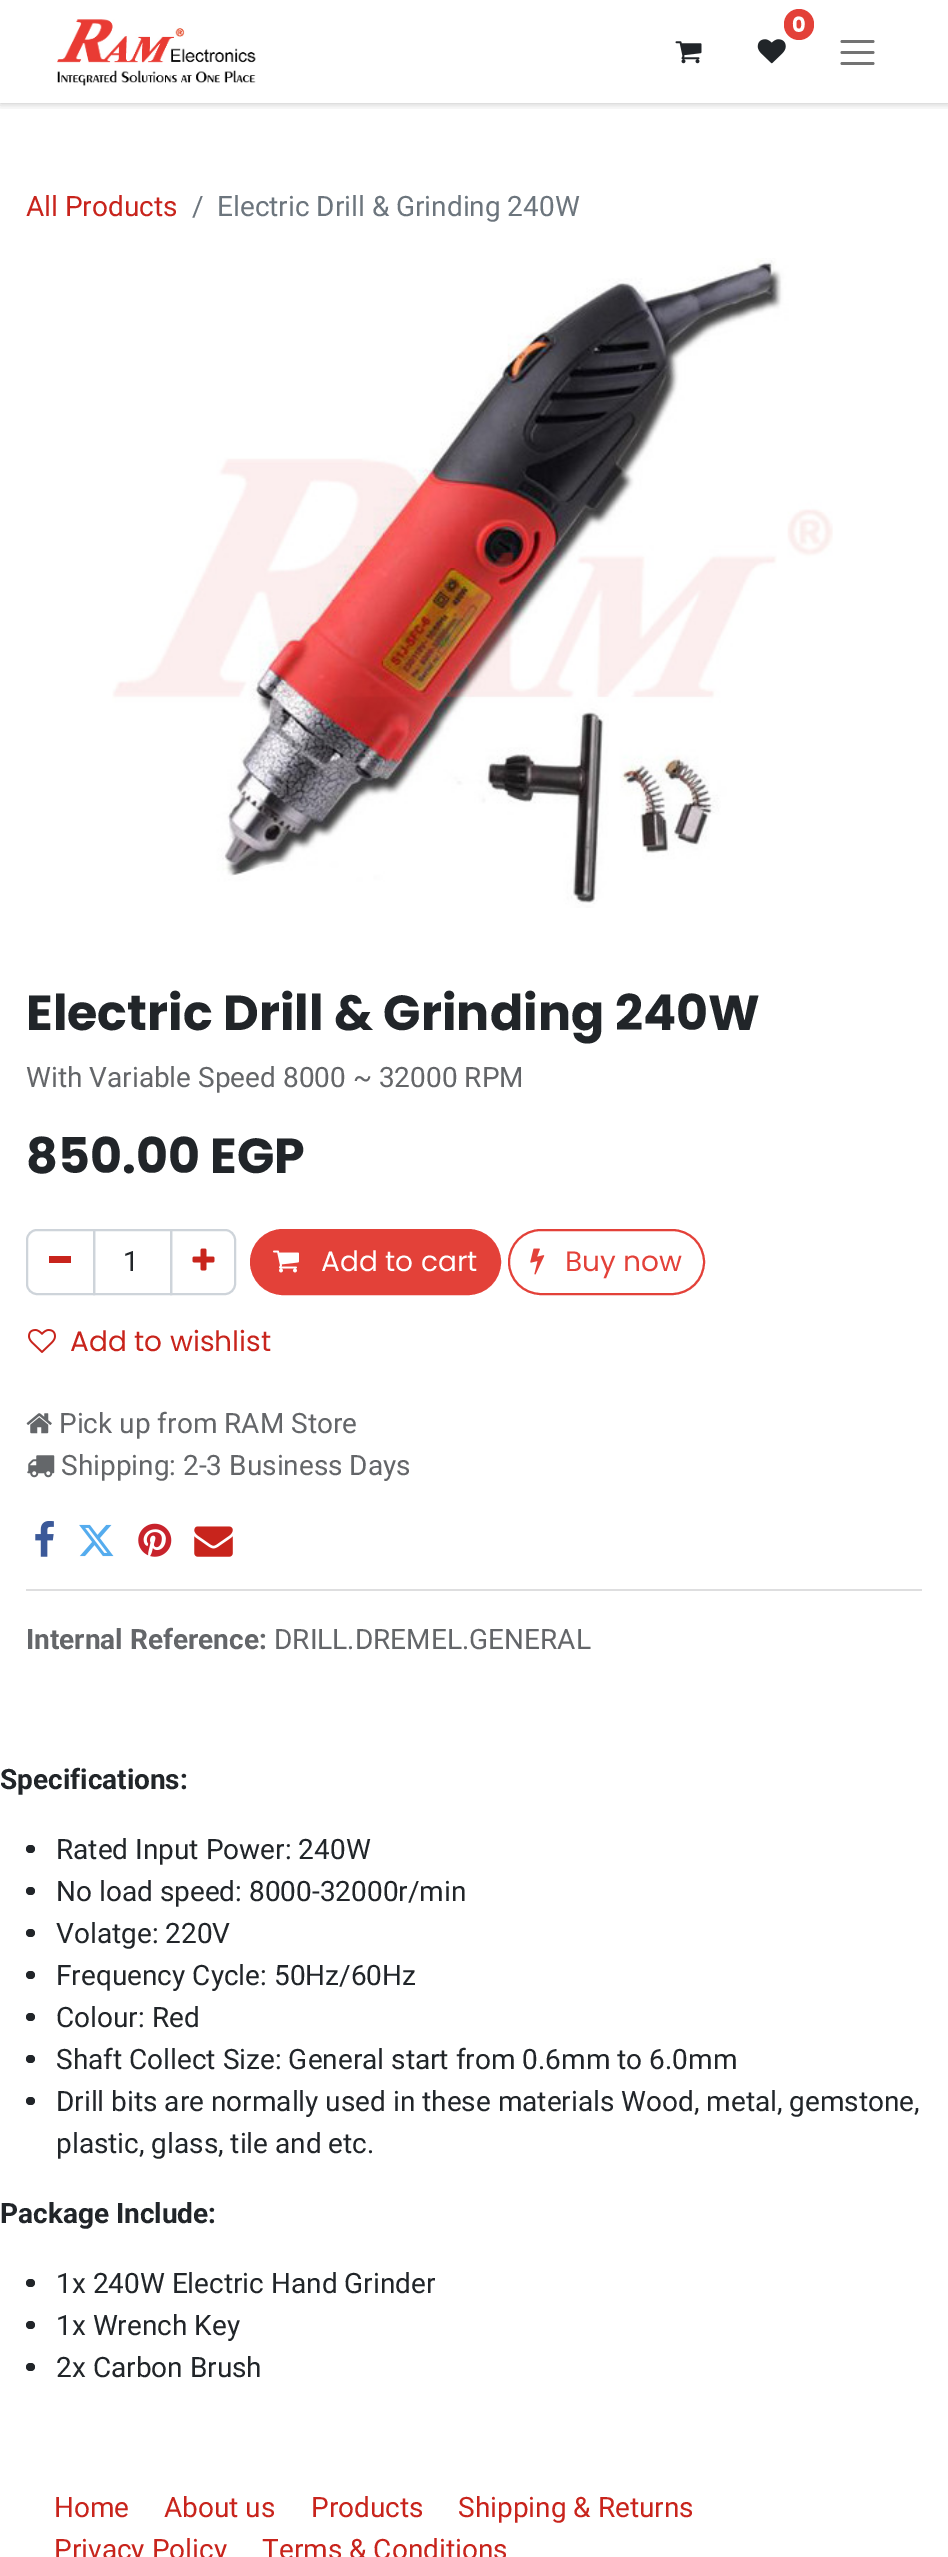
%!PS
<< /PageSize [948 2557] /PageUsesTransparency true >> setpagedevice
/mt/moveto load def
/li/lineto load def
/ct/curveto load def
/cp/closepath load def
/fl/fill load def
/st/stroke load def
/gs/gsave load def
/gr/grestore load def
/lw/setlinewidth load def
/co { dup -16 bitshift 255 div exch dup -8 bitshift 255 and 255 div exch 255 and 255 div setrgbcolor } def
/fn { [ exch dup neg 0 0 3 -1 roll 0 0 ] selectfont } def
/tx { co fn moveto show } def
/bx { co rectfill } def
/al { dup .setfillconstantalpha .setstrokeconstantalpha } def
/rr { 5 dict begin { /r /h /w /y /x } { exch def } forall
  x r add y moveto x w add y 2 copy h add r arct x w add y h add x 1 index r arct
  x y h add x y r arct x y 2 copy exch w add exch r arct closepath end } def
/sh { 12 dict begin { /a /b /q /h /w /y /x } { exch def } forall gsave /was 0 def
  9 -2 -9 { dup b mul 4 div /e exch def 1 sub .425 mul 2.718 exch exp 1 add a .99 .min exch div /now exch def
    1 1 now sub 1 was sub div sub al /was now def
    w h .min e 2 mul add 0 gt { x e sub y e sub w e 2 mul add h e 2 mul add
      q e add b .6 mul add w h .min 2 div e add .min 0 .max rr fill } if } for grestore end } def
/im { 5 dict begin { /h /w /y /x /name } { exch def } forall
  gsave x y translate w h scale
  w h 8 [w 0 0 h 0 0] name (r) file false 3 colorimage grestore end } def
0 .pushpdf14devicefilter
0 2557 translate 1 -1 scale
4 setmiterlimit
0 0 948 2557 16#FFFFFF bx
gs
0 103 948 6 rectclip
16#000000 co
0 0 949 103 0 4.5 .25 sh
gr
(media/1.raw) 57 19 199 67 im
(media/2.raw) 757 39 29 25 im
16#E34139 co
784 9 30 31 15 rr fl
(media/3.raw) 675 41 27 23 im
16#737373 co
2.8 lw
1 setlinecap
842 41.5 mt 873 41.5 li 842 52.5 mt 873 52.5 li 842 63.5 mt 873 63.5 li st
(media/4.raw) 112 258 721 650 im
16#CED4DA co
2 lw
0 setlinecap
94 1230 77 64 rectstroke
37 1230 mt 94 1230 li 94 1294 li 37 1294 li 31.5 1294 27 1289.5 27 1284 ct 27 1240 li 27 1234.5 31.5 1230 37 1230 ct cp st
49 1256 22 7 16#C8241C bx
16#CED4DA co
171 1230 mt 225 1230 li 230.5 1230 235 1234.5 235 1240 ct 235 1284 li 235 1289.5 230.5 1294 225 1294 ct 171 1294 li cp st
(media/5.raw) 192 1248 23 23 im
16#E34139 co
251 1230 249 64 32 rr gs fl gr
st
(media/6.raw) 273 1250 26 23 im
509 1230 195 64 32 rr st
(media/7.raw) 530 1248 15 27 im
(media/8.raw) 28 1329 28 24 im
(media/9.raw) 26 1413 26 21 im
(media/10.raw) 27 1455 28 23 im
(media/11.raw) 35 1521 19 36 im
(media/12.raw) 79 1524 35 33 im
(media/13.raw) 138 1523 34 34 im
(media/14.raw) 194 1526 39 31 im
26 1589 896 2 16#DEDEDF bx
16#212529 co
26 1845 9 8 4 rr fl
26 1887 9 8 4 rr fl
26 1929 9 8 4 rr fl
26 1971 9 8 4 rr fl
26 2013 9 8 4 rr fl
26 2055 9 8 4 rr fl
26 2097 9 8 4 rr fl
26 2279 9 8 4 rr fl
26 2321 9 8 4 rr fl
26 2363 9 8 4 rr fl
(0) 792 32 /Poppins-Bold 21 16#FFFFFF tx
(All Products) 26 216 /Roboto-Regular 28 16#C8241C tx
(/) 192 216 /Roboto-Regular 28 16#6C757D tx
(Electric Drill & Grinding 240W) 217 216 /Roboto-Regular 28 16#6C757D tx
(Electric Drill & Grinding 240W) 26 1030 /Poppins-Bold 49.2 16#212529 tx
(With Variable Speed 8000 ~ 32000 RPM) 26 1087 /Roboto-Regular 28 16#646669 tx
(850.00 EGP) 26 1173 /Poppins-Bold 49.2 16#212529 tx
(1) 123 1271 /Roboto-Regular 28 16#212529 tx
(Add to cart) 321 1271 /Poppins-Regular 28 16#FFFFFF tx
(Buy now) 565 1271 /Poppins-Regular 28 16#E34139 tx
(Add to wishlist) 70 1351 /Poppins-Regular 28 16#C8241C tx
(Pick up from RAM Store) 59 1433 /Roboto-Regular 28 16#646669 tx
(Shipping: 2-3 Business Days) 61 1475 /Roboto-Regular 28 16#646669 tx
(Internal Reference:) 26 1649 /Roboto-Bold 28 16#646669 tx
(DRILL.DREMEL.GENERAL) 274 1649 /Roboto-Regular 28 16#646669 tx
(Specifications:) 0 1789 /Roboto-Bold 28 16#212529 tx
(Rated Input Power: 240W) 56 1859 /Roboto-Regular 28 16#212529 tx
(No load speed: 8000-32000r/min) 56 1901 /Roboto-Regular 28 16#212529 tx
(Volatge: 220V) 56 1943 /Roboto-Regular 28 16#212529 tx
(Frequency Cycle: 50Hz/60Hz) 56 1985 /Roboto-Regular 28 16#212529 tx
(Colour: Red) 56 2027 /Roboto-Regular 28 16#212529 tx
(Shaft Collect Size: General start from 0.6mm to 6.0mm) 56 2069 /Roboto-Regular 28 16#212529 tx
(Drill bits are normally used in these materials Wood, metal, gemstone,) 56 2111 /Roboto-Regular 28 16#212529 tx
(plastic, glass, tile and etc.) 56 2153 /Roboto-Regular 28 16#212529 tx
(Package Include:) 0 2223 /Roboto-Bold 28 16#212529 tx
(1x 240W Electric Hand Grinder) 56 2293 /Roboto-Regular 28 16#212529 tx
(1x Wrench Key) 56 2335 /Roboto-Regular 28 16#212529 tx
(2x Carbon Brush) 56 2377 /Roboto-Regular 28 16#212529 tx
(Home) 54 2517 /Roboto-Regular 28 16#C8241C tx
(About us) 164 2517 /Roboto-Regular 28 16#C8241C tx
(Products) 311 2517 /Roboto-Regular 28 16#C8241C tx
(Shipping & Returns) 458 2517 /Roboto-Regular 28 16#C8241C tx
(Privacy Policy) 54 2559 /Roboto-Regular 28 16#C8241C tx
(Terms & Conditions) 262 2559 /Roboto-Regular 28 16#C8241C tx
.poppdf14devicefilter showpage
